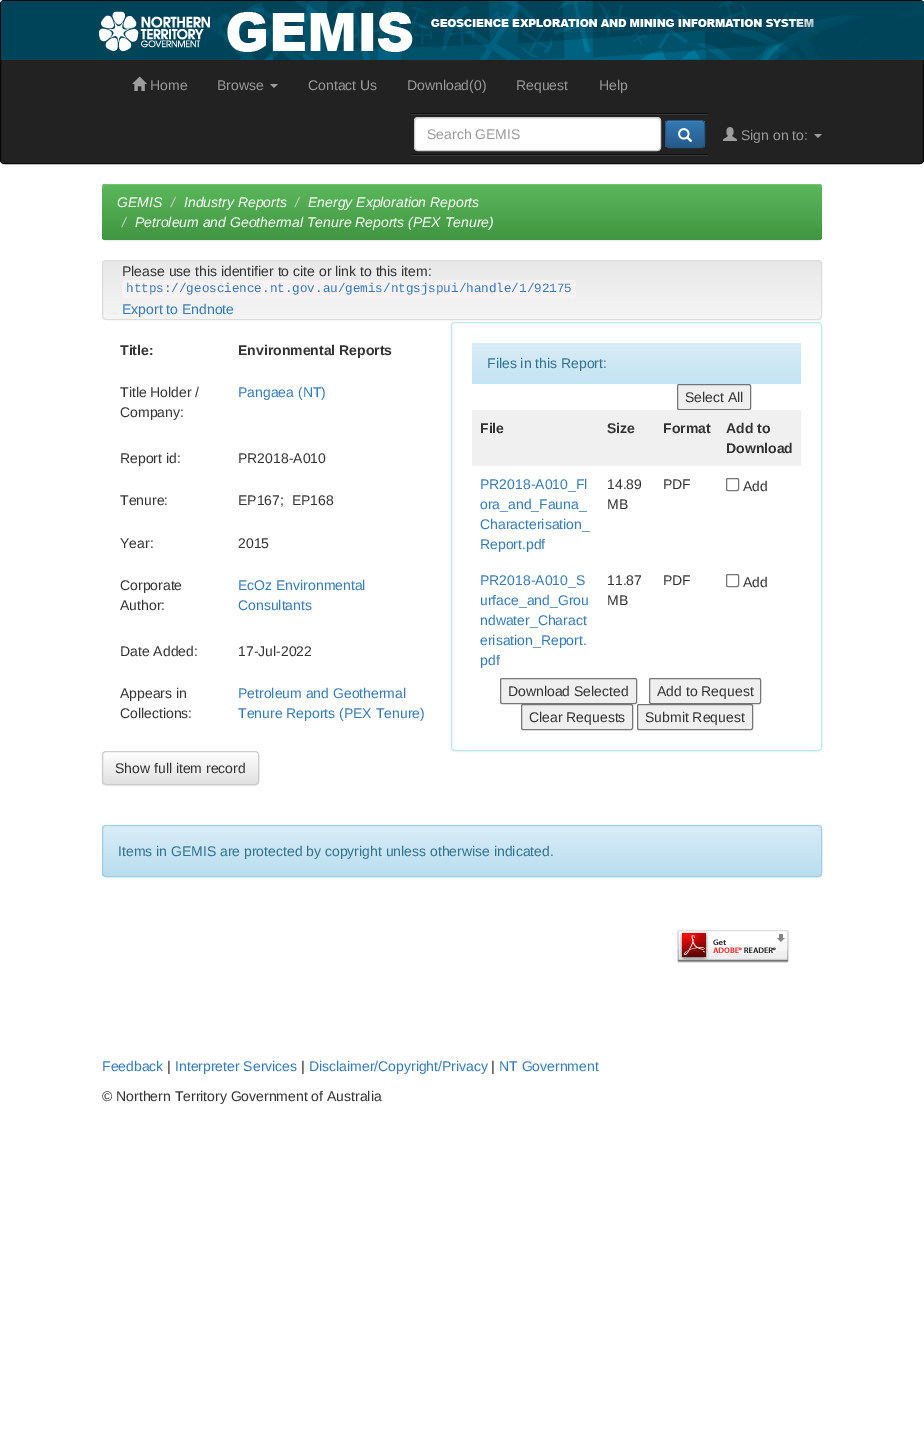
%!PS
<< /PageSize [924 1435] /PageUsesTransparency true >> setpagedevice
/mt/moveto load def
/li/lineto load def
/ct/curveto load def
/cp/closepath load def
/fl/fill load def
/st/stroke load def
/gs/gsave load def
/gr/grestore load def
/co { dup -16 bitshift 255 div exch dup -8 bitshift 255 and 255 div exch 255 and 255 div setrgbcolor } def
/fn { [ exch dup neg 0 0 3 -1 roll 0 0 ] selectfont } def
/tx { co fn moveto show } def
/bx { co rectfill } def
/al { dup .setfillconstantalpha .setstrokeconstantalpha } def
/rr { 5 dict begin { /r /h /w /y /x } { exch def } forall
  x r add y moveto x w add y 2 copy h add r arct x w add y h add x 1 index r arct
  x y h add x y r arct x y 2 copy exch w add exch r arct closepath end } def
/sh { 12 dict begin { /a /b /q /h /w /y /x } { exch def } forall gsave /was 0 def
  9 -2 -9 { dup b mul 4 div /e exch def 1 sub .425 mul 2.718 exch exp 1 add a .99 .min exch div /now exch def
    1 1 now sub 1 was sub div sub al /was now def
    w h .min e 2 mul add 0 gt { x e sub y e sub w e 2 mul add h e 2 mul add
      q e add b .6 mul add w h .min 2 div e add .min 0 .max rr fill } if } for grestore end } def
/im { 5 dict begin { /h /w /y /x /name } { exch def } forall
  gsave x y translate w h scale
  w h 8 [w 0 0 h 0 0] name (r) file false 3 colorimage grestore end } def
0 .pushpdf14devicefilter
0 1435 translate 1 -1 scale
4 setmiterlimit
0 0 924 1435 16#FFFFFF bx
16#222222 co
.5 .5 923 163 3.5 rr gs fl gr
16#080808 co
st
1 1 97 59 16#004459 bx
(media/1.raw) 98 1 826 59 im
(media/2.raw) 132 76 15 15 im
16#9D9D9D co
270 84 mt 278 84 li 274 88 li cp fl
411 155 297 1 16#383838 bx
411 114 297 1 16#383838 bx
411 113 297 1 16#101010 bx
411 154 297 1 16#101010 bx
16#FFFFFF co
414 117 247 34 4 rr fl
16#ECECEC co
418 119 mt 658 119 li 660 120 li 660 122 li 660 120 659 118 657 118 ct 418 118 li 416 118 415 120 415 122 ct 415 120 416 119 418 119 ct cp fl
16#CCCCCC co
414.5 117.5 246 33 3.5 rr st
gs
665 120 40 28 4 rr clip newpath
gs 665 121 mt 705 121 li 705 147 li 665 147 li cp clip newpath
<< /ShadingType 2 /ColorSpace /DeviceRGB /Coords [685 121 685 147] /Extend [true true] /Function << /FunctionType 2 /Domain [0 1] /C0 [.2 .478 .718] /C1 [.149 .353 .533] /N 1 >> >> shfill gr
gr
16#528DC1 co
669 122 mt 701 122 li 703 122 704 123 704 125 ct 704 120 700 121 695.5 121 ct 674.5 121 li 670 121 666 120 666 125 ct 666 123 667 122 669 122 ct cp fl
16#245580 co
665.5 120.5 39 27 3.5 rr st
(media/3.raw) 678 128 15 14 im
(media/4.raw) 723 127 14 14 im
16#9D9D9D co
814 134 mt 822 134 li 818 138 li cp fl
16#000000 co
102 185 720 56 4 .5 .07 sh
gs 102 184 720 56 4 rr clip newpath
<< /ShadingType 2 /ColorSpace /DeviceRGB /Coords [462 184 462 240] /Extend [true true] /Function << /FunctionType 2 /Domain [0 1] /C0 [.361 .722 .361] /C1 [.255 .588 .255] /N 1 >> >> shfill gr
0.15 al
16#FFFFFF co
106 185 mt 818 185 li 820 185 822 187 822 189 ct 822 186 821 184 818 184 ct 106 184 li 103 185 li 102 186 li 102 189 li 102 187 104 185 106 185 ct cp fl
gs
102 260 720 60 4 rr clip newpath
1 al
gs 102 261 mt 822 261 li 822 319 li 102 319 li cp clip newpath
<< /ShadingType 2 /ColorSpace /DeviceRGB /Coords [462 261 462 319] /Extend [true true] /Function << /FunctionType 2 /Domain [0 1] /C0 [.91 .91 .91] /C1 [.961 .961 .961] /N 1 >> >> shfill gr
gr
1 al
16#DCDCDC co
102.5 260.5 719 59 3.5 rr st
16#F9F2F4 co
122 280 454 18 4 rr fl
16#000000 co
451 323 371 429 4 1 .05 sh
16#FFFFFF co
451.5 322.5 370 428 3.5 rr gs fl gr
16#BCE8F1 co
st
gs 475 343 mt 798 343 li 799.5 343 801 344.5 801 346 ct 801 383 li 472 383 li 472 346 li 472 344.5 473.5 343 475 343 ct cp clip newpath
<< /ShadingType 2 /ColorSpace /DeviceRGB /Coords [637 343 637 383] /Extend [true true] /Function << /FunctionType 2 /Domain [0 1] /C0 [.851 .929 .969] /C1 [.769 .89 .953] /N 1 >> >> shfill gr
472 383 329 1 16#BCE8F1 bx
16#EFEFEF co
677.5 384.5 73 25 1.5 rr gs fl gr
16#767676 co
st
472 410 329 56 16#F0F0F0 bx
16#767676 co
726.5 478.5 12 12 1.5 rr st
726.5 574.5 12 12 1.5 rr st
16#EFEFEF co
500.5 678.5 136 25 1.5 rr gs fl gr
16#767676 co
st
16#EFEFEF co
649.5 678.5 111 25 1.5 rr gs fl gr
16#767676 co
st
16#EFEFEF co
521.5 704.5 111 25 1.5 rr gs fl gr
16#767676 co
st
16#EFEFEF co
637.5 704.5 115 25 1.5 rr gs fl gr
16#767676 co
st
16#000000 co
102 752 157 34 4 .5 .07 sh
gs
102 751 157 34 4 rr clip newpath
gs 102 752 mt 259 752 li 259 784 li 102 784 li cp clip newpath
<< /ShadingType 2 /ColorSpace /DeviceRGB /Coords [181 752 181 784] /Extend [true true] /Function << /FunctionType 2 /Domain [0 1] /C0 [1 1 1] /C1 [.878 .878 .878] /N 1 >> >> shfill gr
gr
16#CCCCCC co
102.5 751.5 156 33 3.5 rr st
16#000000 co
102 826 720 52 4 1 .05 sh
gs
102 825 720 52 4 rr clip newpath
gs 102 826 mt 822 826 li 822 876 li 102 876 li cp clip newpath
<< /ShadingType 2 /ColorSpace /DeviceRGB /Coords [462 826 462 876] /Extend [true true] /Function << /FunctionType 2 /Domain [0 1] /C0 [.851 .929 .969] /C1 [.725 .871 .941] /N 1 >> >> shfill gr
gr
16#E3F2F9 co
106 827 mt 818 827 li 820 827 821 828 821 830 ct 821 828 820 826 818 826 ct 106 826 li 104 826 103 828 103 830 ct 103 828 104 827 106 827 ct cp fl
16#9ACFEA co
102.5 825.5 719 51 3.5 rr st
(media/5.raw) 677 930 112 33 im
(Home) 150 90 /LiberationSans-Regular 14 16#999999 tx
(Browse) 217 90 /LiberationSans-Regular 14 16#999999 tx
(Contact Us) 308 90 /LiberationSans-Regular 14 16#999999 tx
(Download\(0\)) 407 90 /LiberationSans-Regular 14 16#999999 tx
(Request) 516 90 /LiberationSans-Regular 14 16#999999 tx
(Help) 599 90 /LiberationSans-Regular 14 16#999999 tx
(Search GEMIS) 427 139 /LiberationSans-Regular 14 16#999999 tx
(Sign on to:) 741 140 /LiberationSans-Regular 14 16#999999 tx
(GEMIS) 117 207 /LiberationSans-Italic 14 16#FFFFFF tx
(/) 171 207 /LiberationSans-Italic 14 16#CCCCCC tx
(Industry Reports) 184 207 /LiberationSans-Italic 14 16#FFFFFF tx
(/) 295 207 /LiberationSans-Italic 14 16#CCCCCC tx
(Energy Exploration Reports) 308 207 /LiberationSans-Italic 14 16#FFFFFF tx
(/) 122 227 /LiberationSans-Italic 14 16#CCCCCC tx
(Petroleum and Geothermal Tenure Reports \(PEX Tenure\)) 135 227 /LiberationSans-Italic 14 16#FFFFFF tx
(Please use this identifier to cite or link to this item:) 122 276 /LiberationSans-Regular 14 16#333333 tx
(https://geoscience.nt.gov.au/gemis/ntgsjspui/handle/1/92175) 126 292 /LiberationMono-Regular 12.6 16#337AB7 tx
(Export to Endnote) 122 314 /LiberationSans-Regular 14 16#337AB7 tx
(Title:) 120 355 /LiberationSans-Bold 14 16#333333 tx
(Environmental Reports) 238 355 /LiberationSans-Bold 14 16#333333 tx
(Title Holder /) 120 397 /LiberationSans-Regular 14 16#333333 tx
(Company:) 120 417 /LiberationSans-Regular 14 16#333333 tx
(Pangaea \(NT\)) 238 397 /LiberationSans-Regular 14 16#337AB7 tx
(Report id:) 120 463 /LiberationSans-Regular 14 16#333333 tx
(PR2018-A010) 238 463 /LiberationSans-Regular 14 16#333333 tx
(Tenure:) 120 505 /LiberationSans-Regular 14 16#333333 tx
(EP167;  EP168) 238 505 /LiberationSans-Regular 14 16#333333 tx
(Year:) 120 548 /LiberationSans-Regular 14 16#333333 tx
(2015) 238 548 /LiberationSans-Regular 14 16#333333 tx
(Corporate) 120 590 /LiberationSans-Regular 14 16#333333 tx
(Author:) 120 610 /LiberationSans-Regular 14 16#333333 tx
(EcOz Environmental) 238 590 /LiberationSans-Regular 14 16#337AB7 tx
(Consultants) 238 610 /LiberationSans-Regular 14 16#337AB7 tx
(Date Added:) 120 656 /LiberationSans-Regular 14 16#333333 tx
(17-Jul-2022) 238 656 /LiberationSans-Regular 14 16#333333 tx
(Appears in) 120 698 /LiberationSans-Regular 14 16#333333 tx
(Collections:) 120 718 /LiberationSans-Regular 14 16#333333 tx
(Petroleum and Geothermal) 238 698 /LiberationSans-Regular 14 16#337AB7 tx
(Tenure Reports \(PEX Tenure\)) 238 718 /LiberationSans-Regular 14 16#337AB7 tx
(Files in this Report:) 487 368 /LiberationSans-Regular 14 16#31708F tx
(Select All) 685 402 /LiberationSans-Regular 14 16#333333 tx
(File) 480 433 /LiberationSans-Bold 14 16#333333 tx
(Size) 607 433 /LiberationSans-Bold 14 16#333333 tx
(Format) 663 433 /LiberationSans-Bold 14 16#333333 tx
(Add to) 726 433 /LiberationSans-Bold 14 16#333333 tx
(Download) 726 453 /LiberationSans-Bold 14 16#333333 tx
(PR2018-A010_Fl) 480 489 /LiberationSans-Regular 14 16#337AB7 tx
(ora_and_Fauna_) 480 509 /LiberationSans-Regular 14 16#337AB7 tx
(Characterisation_) 480 529 /LiberationSans-Regular 14 16#337AB7 tx
(Report.pdf) 480 549 /LiberationSans-Regular 14 16#337AB7 tx
(14.89) 607 489 /LiberationSans-Regular 14 16#333333 tx
(MB) 607 509 /LiberationSans-Regular 14 16#333333 tx
(PDF) 663 489 /LiberationSans-Regular 14 16#333333 tx
(Add) 743 491 /LiberationSans-Regular 14 16#333333 tx
(PR2018-A010_S) 480 585 /LiberationSans-Regular 14 16#337AB7 tx
(urface_and_Grou) 480 605 /LiberationSans-Regular 14 16#337AB7 tx
(ndwater_Charact) 480 625 /LiberationSans-Regular 14 16#337AB7 tx
(erisation_Report.) 480 645 /LiberationSans-Regular 14 16#337AB7 tx
(pdf) 480 665 /LiberationSans-Regular 14 16#337AB7 tx
(11.87) 607 585 /LiberationSans-Regular 14 16#333333 tx
(MB) 607 605 /LiberationSans-Regular 14 16#333333 tx
(PDF) 663 585 /LiberationSans-Regular 14 16#333333 tx
(Add) 743 587 /LiberationSans-Regular 14 16#333333 tx
(Download Selected) 508 696 /LiberationSans-Regular 14 16#333333 tx
(Add to Request) 657 696 /LiberationSans-Regular 14 16#333333 tx
(Clear Requests) 529 722 /LiberationSans-Regular 14 16#333333 tx
(Submit Request) 645 722 /LiberationSans-Regular 14 16#333333 tx
(Show full item record) 115 773 /LiberationSans-Regular 14 16#333333 tx
(Items in GEMIS are protected by copyright unless otherwise indicated.) 118 856 /LiberationSans-Regular 14 16#31708F tx
(Feedback) 102 1071 /LiberationSans-Regular 14 16#337AB7 tx
(|) 167 1071 /LiberationSans-Regular 14 16#333333 tx
(Interpreter Services) 175 1071 /LiberationSans-Regular 14 16#337AB7 tx
(|) 301 1071 /LiberationSans-Regular 14 16#333333 tx
(Disclaimer/Copyright/Privacy) 309 1071 /LiberationSans-Regular 14 16#337AB7 tx
(|) 491 1071 /LiberationSans-Regular 14 16#333333 tx
(NT Government) 499 1071 /LiberationSans-Regular 14 16#337AB7 tx
(© Northern Territory Government of Australia) 102 1101 /LiberationSans-Regular 14 16#333333 tx
.poppdf14devicefilter showpage
